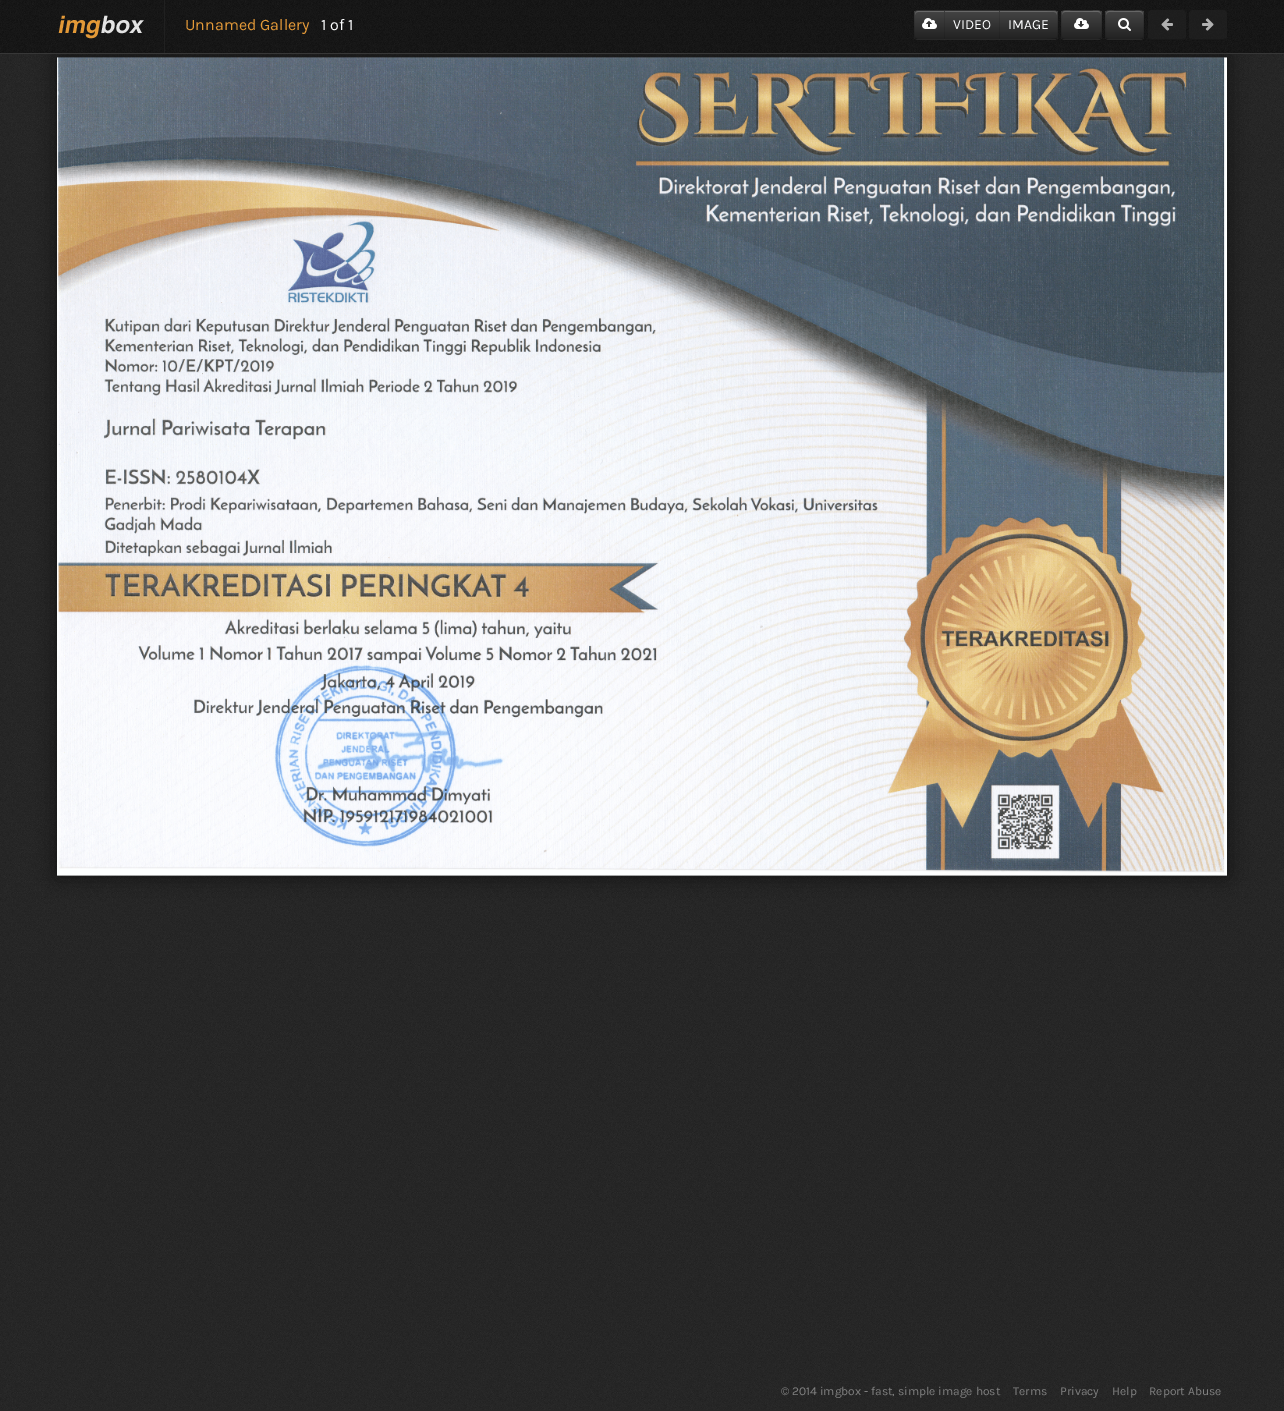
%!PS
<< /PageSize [1284 1411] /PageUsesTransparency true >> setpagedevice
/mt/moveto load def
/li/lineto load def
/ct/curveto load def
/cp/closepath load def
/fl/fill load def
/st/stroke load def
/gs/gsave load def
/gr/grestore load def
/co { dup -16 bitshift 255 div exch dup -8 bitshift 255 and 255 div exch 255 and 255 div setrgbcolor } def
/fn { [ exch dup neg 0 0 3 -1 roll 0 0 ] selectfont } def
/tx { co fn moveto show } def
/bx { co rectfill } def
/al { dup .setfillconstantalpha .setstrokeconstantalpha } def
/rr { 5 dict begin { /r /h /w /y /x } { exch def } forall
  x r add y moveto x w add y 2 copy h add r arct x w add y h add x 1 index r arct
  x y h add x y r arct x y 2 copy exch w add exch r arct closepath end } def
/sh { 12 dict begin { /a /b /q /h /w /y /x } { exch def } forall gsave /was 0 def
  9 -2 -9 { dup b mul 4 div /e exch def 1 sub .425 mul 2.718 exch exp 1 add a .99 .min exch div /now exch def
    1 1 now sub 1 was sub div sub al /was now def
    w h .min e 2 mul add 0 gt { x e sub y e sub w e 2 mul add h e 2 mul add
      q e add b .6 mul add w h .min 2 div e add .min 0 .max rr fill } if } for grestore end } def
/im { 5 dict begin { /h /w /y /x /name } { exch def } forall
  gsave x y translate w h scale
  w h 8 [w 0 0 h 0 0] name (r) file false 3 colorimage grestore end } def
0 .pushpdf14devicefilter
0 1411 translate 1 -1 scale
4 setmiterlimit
0 0 1284 1411 16#262626 bx
(media/1.raw) 0 54 1284 1356 im
16#111111 co
57 57 1170 819 0 10 1 sh
(media/2.raw) 0 0 1284 53 im
0 53 1284 1 16#373737 bx
(media/3.raw) 58 15 86 24 im
164 0 1 53 16#202020 bx
16#363636 co
918 10 mt 945 10 li 945 40 li 918 40 li 916 40 914 38 914 36 ct 914 14 li 914 12 916 10 918 10 ct cp fl
gs
918 10 mt 945 10 li 945 40 li 918 40 li 916 40 914 38 914 36 ct 914 14 li 914 12 916 10 918 10 ct cp clip newpath
gs 914 11 mt 944 11 li 944 39 li 914 39 li cp clip newpath
<< /ShadingType 2 /ColorSpace /DeviceRGB /Coords [930 11 930 39] /Extend [true true] /Function << /FunctionType 2 /Domain [0 1] /C0 [.267 .267 .267] /C1 [.133 .133 .133] /N 1 >> >> shfill gr
gr
16#696969 co
918 12 mt 944 12 li 944 11 li 918 11 li 916.5 11 915 12.5 915 14 ct 915 15 li 915 13 916 12 918 12 ct cp fl
0.1 al
16#000000 co
918 10 mt 917 10 916 10.5 915 11 ct 916 12 li 916.5 11.5 917 11 918 11 ct 944 11 li 945 10 li cp fl
0.25 al
945 40 mt 944 39 li 918 39 li 917 39 916.5 38.5 916 38 ct 915 39 li 916 39.5 917 40 918 40 ct cp fl
0.1 al
914 14 mt 914 36 li 914 37 914.5 38 915 39 ct 916 38 li 915.5 37.5 915 37 915 36 ct 915 14 li 915 13 915.5 12.5 916 12 ct 915 11 li 914.5 12 914 13 914 14 ct cp fl
1 al
(media/4.raw) 922 18 15 11 im
944 10 55 30 16#363636 bx
gs 944 11 mt 999 11 li 999 39 li 944 39 li cp clip newpath
<< /ShadingType 2 /ColorSpace /DeviceRGB /Coords [972 11 972 39] /Extend [true true] /Function << /FunctionType 2 /Domain [0 1] /C0 [.267 .267 .267] /C1 [.133 .133 .133] /N 1 >> >> shfill gr
945 11 54 1 16#696969 bx
16#313131 co
944 10 mt 1000 10 li 999 11 li 945 11 li cp fl
0.25 al
16#000000 co
1000 40 mt 944 40 li 945 39 li 999 39 li cp fl
0.1 al
944 40 mt 944 10 li 945 11 li 945 39 li cp fl
1 al
16#363636 co
999 10 mt 1054 10 li 1056 10 1058 12 1058 14 ct 1058 36 li 1058 38 1056 40 1054 40 ct 999 40 li cp fl
gs
999 10 mt 1054 10 li 1056 10 1058 12 1058 14 ct 1058 36 li 1058 38 1056 40 1054 40 ct 999 40 li cp clip newpath
gs 999 11 mt 1058 11 li 1058 39 li 999 39 li cp clip newpath
<< /ShadingType 2 /ColorSpace /DeviceRGB /Coords [1029 11 1029 39] /Extend [true true] /Function << /FunctionType 2 /Domain [0 1] /C0 [.267 .267 .267] /C1 [.133 .133 .133] /N 1 >> >> shfill gr
gr
16#696969 co
1000 12 mt 1054 12 li 1056 12 1057 13 1057 15 ct 1057 14 li 1057 12 1056 11 1054 11 ct 1000 11 li cp fl
0.1 al
16#000000 co
999 10 mt 1000 11 li 1006 11 1054 10 1056 12 ct 1057 11 li 1054 10 li cp fl
1058 36 mt 1058 14 li 1058 13 1057.5 12 1057 11 ct 1056 12 li 1057 12 1057 13 1057 14 ct 1057 36 li 1057 37 1057 38 1056 38 ct 1057 39 li 1057.5 38 1058 37 1058 36 ct cp fl
0.25 al
1054 40 mt 1057 39 li 1056 38 li 1054 40 1006 39 1000 39 ct 999 40 li cp fl
0.1 al
999 10 mt 999 40 li 1000 39 li 1000 11 li cp fl
1 al
16#363636 co
1061 10 41 30 4 rr fl
gs
1061 10 41 30 4 rr clip newpath
gs 1061 11 mt 1102 11 li 1102 39 li 1061 39 li cp clip newpath
<< /ShadingType 2 /ColorSpace /DeviceRGB /Coords [1082 11 1082 39] /Extend [true true] /Function << /FunctionType 2 /Domain [0 1] /C0 [.267 .267 .267] /C1 [.133 .133 .133] /N 1 >> >> shfill gr
gr
16#696969 co
1065 12 mt 1098 12 li 1100 12 1101 13 1101 15 ct 1101 9.5 1097 11 1092.5 11 ct 1070.5 11 li 1066 11 1062 9.5 1062 15 ct 1062 13 1063 12 1065 12 ct cp fl
0.25 al
16#000000 co
1100.5 38.5 mt 1100 39 1099 39.5 1098 39.5 ct 1065 39.5 li 1064 39.5 1063 39 1062.5 38.5 ct st
0.1 al
1062.5 38.5 mt 1060.5 36.5 1061.5 28 1061.5 25 ct 1061.5 6 1060 10.5 1081.5 10.5 ct 1103 10.5 1101.5 6 1101.5 25 ct 1101.5 28 1102.5 36.5 1100.5 38.5 ct st
1 al
(media/5.raw) 1074 18 15 11 im
16#363636 co
1105 10 39 30 4 rr fl
gs
1105 10 39 30 4 rr clip newpath
gs 1105 11 mt 1144 11 li 1144 39 li 1105 39 li cp clip newpath
<< /ShadingType 2 /ColorSpace /DeviceRGB /Coords [1125 11 1125 39] /Extend [true true] /Function << /FunctionType 2 /Domain [0 1] /C0 [.267 .267 .267] /C1 [.133 .133 .133] /N 1 >> >> shfill gr
gr
16#696969 co
1109 12 mt 1140 12 li 1142 12 1143 13 1143 15 ct 1143 10 1139 11 1135 11 ct 1114 11 li 1110 11 1106 10 1106 15 ct 1106 13 1107 12 1109 12 ct cp fl
0.25 al
16#000000 co
1142.5 38.5 mt 1142 39 1141 39.5 1140 39.5 ct 1109 39.5 li 1108 39.5 1107 39 1106.5 38.5 ct st
0.1 al
1106.5 38.5 mt 1106 38 1105.5 37 1105.5 36 ct 1105.5 14 li 1105.5 13 1106 12 1106.5 11.5 ct 1107 11 1108 10.5 1109 10.5 ct 1140 10.5 li 1141 10.5 1142 11 1142.5 11.5 ct 1143 12 1143.5 13 1143.5 14 ct 1143.5 36 li 1143.5 37 1143 38 1142.5 38.5 ct st
1 al
(media/6.raw) 1118 18 13 13 im
0.65 al
16#222222 co
1148 10 38 30 4 rr fl
0.16 al
16#000000 co
1184.5 38.5 mt 1184 39 1183 39.5 1182 39.5 ct 1152 39.5 li 1151 39.5 1150 39 1149.5 38.5 ct st
1 al
(media/7.raw) 1161 18 12 13 im
0.65 al
16#222222 co
1189 10 38 30 4 rr fl
0.16 al
16#000000 co
1225.5 38.5 mt 1225 39 1224 39.5 1223 39.5 ct 1193 39.5 li 1192 39.5 1191 39 1190.5 38.5 ct st
1 al
(media/8.raw) 1202 18 12 13 im
(media/9.raw) 57 57 1170 819 im
(Unnamed Gallery) 185 30 /Karla-Regular 16 16#E39938 tx
(1 of 1) 321 30 /Karla-Regular 16 16#FDFEFF tx
(VIDEO) 953 29 /Karla-Regular 14 16#FDFEFF tx
(IMAGE) 1008 29 /Karla-Regular 14 16#FDFEFF tx
(© 2014 imgbox - fast, simple image host) 781 1395 /Karla-Regular 12 16#808080 tx
(Terms) 1013 1395 /Karla-Regular 12 16#808080 tx
(Privacy) 1060 1395 /Karla-Regular 12 16#808080 tx
(Help) 1112 1395 /Karla-Regular 12 16#808080 tx
(Report Abuse) 1149 1395 /Karla-Regular 12 16#808080 tx
.poppdf14devicefilter showpage
